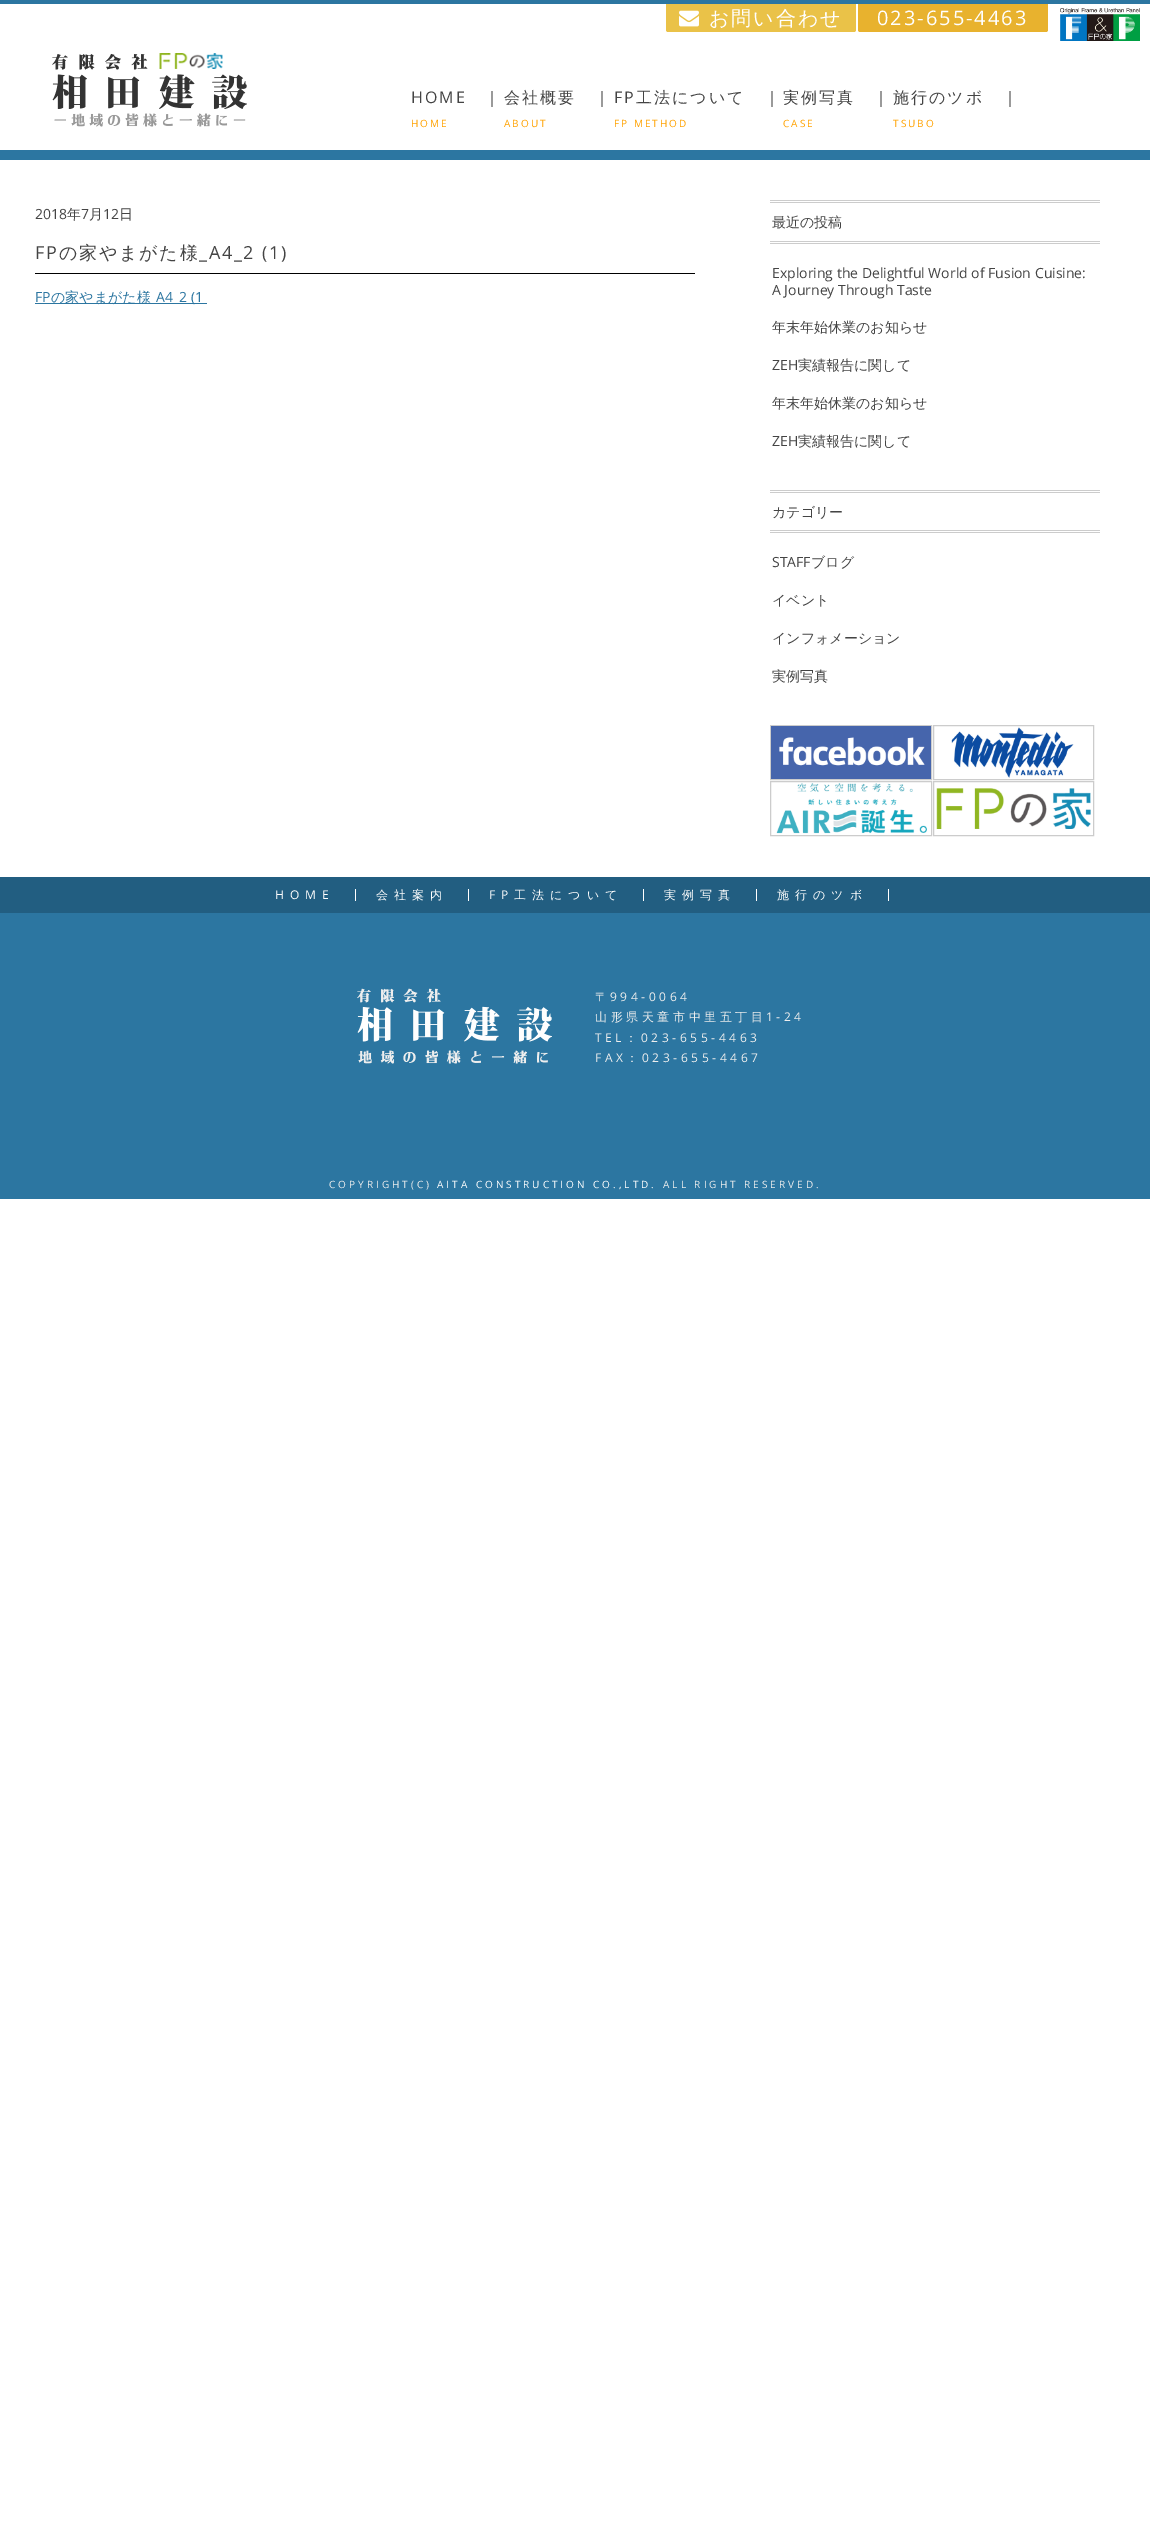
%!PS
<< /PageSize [1150 2546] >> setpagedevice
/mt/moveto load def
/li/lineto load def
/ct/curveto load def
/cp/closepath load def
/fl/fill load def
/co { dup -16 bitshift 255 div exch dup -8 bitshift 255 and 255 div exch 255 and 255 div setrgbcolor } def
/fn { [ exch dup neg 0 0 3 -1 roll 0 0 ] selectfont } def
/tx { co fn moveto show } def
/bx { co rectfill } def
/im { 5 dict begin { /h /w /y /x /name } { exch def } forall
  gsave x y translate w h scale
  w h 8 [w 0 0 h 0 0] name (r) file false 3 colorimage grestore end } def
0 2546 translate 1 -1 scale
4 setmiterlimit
0 0 1150 2546 16#FFFFFF bx
0 0 1150 4 16#2C76A1 bx
16#EAC248 co
666 4 mt 856 4 li 856 30 li 856 31 855 32 854 32 ct 668 32 li 667 32 666 31 666 30 ct cp fl
(media/1.raw) 679 10 20 17 im
16#E8B22E co
858 4 mt 1048 4 li 1048 30 li 1048 31 1047 32 1046 32 ct 860 32 li 859 32 858 31 858 30 ct cp fl
(media/2.raw) 1060 8 80 33 im
(media/3.raw) 52 53 195 74 im
0 150 1150 10 16#2C76A1 bx
35 273 660 1 16#000000 bx
35 303 172 1 16#2C76A1 bx
770 200 330 1 16#CCCCCC bx
770 202 330 1 16#CCCCCC bx
770 241 330 1 16#CCCCCC bx
770 243 330 1 16#CCCCCC bx
770 490 330 1 16#CCCCCC bx
770 492 330 1 16#CCCCCC bx
770 530 330 1 16#CCCCCC bx
770 532 330 1 16#CCCCCC bx
770.5 725.5 161 54 rectstroke
(media/4.raw) 771 726 160 53 im
933.5 725.5 160 54 rectstroke
(media/5.raw) 951 727 123 51 im
770.5 781.5 161 54 rectstroke
(media/6.raw) 776 783 151 51 im
933.5 781.5 160 54 rectstroke
(media/7.raw) 936 788 155 41 im
0 877 1150 36 16#225E81 bx
355 889 1 12 16#FFFFFF bx
468 889 1 12 16#FFFFFF bx
643 889 1 12 16#FFFFFF bx
756 889 1 12 16#FFFFFF bx
888 889 1 12 16#FFFFFF bx
0 913 1150 286 16#2C76A1 bx
(media/8.raw) 357 988 195 76 im
/WenQuanYiZenHei-Medium 20 fn
16#FFFFFF co
709 25 mt 2 0 (お問い合わせ) ashow
/OpenSans-Regular 20 fn
877 25 mt 2 0 (023-655-4463) ashow
/OpenSans-Regular 16 fn
16#444444 co
411 103 mt 2 0 (HOME) ashow
/WenQuanYiZenHei-Medium 16 fn
484 103 mt 2 0 (｜) ashow
/OpenSans-Regular 10 fn
16#FFA200 co
411 127 mt 2 0 (HOME) ashow
/WenQuanYiZenHei-Medium 16 fn
16#444444 co
504 103 mt 2 0 (会社概要　｜) ashow
/OpenSans-Regular 10 fn
16#FFA200 co
504 127 mt 2 0 (ABOUT) ashow
/OpenSans-Regular 16 fn
16#444444 co
614 103 mt 2 0 (FP) ashow
/WenQuanYiZenHei-Medium 16 fn
636 103 mt 2 0 (工法について　｜) ashow
/OpenSans-Regular 10 fn
16#FFA200 co
614 127 mt 2 0 (FP METHOD) ashow
/WenQuanYiZenHei-Medium 16 fn
16#444444 co
783 103 mt 2 0 (実例写真　｜) ashow
/OpenSans-Regular 10 fn
16#FFA200 co
783 127 mt 2 0 (CASE) ashow
/WenQuanYiZenHei-Medium 16 fn
16#444444 co
893 103 mt 2 0 (施行のツボ　｜) ashow
/OpenSans-Regular 10 fn
16#FFA200 co
893 127 mt 2 0 (TSUBO) ashow
(2018) 35 219 /OpenSans-Regular 14 16#444444 tx
(年) 67 219 /WenQuanYiZenHei-Medium 14 16#444444 tx
(7) 81 219 /OpenSans-Regular 14 16#444444 tx
(月) 89 219 /WenQuanYiZenHei-Medium 14 16#444444 tx
(12) 103 219 /OpenSans-Regular 14 16#444444 tx
(日) 119 219 /WenQuanYiZenHei-Medium 14 16#444444 tx
/OpenSans-Regular 18 fn
35 259 mt 1.75 0 (FP) ashow
/WenQuanYiZenHei-Medium 18 fn
59 259 mt 1.75 0 (の家やまがた様) ashow
/OpenSans-Regular 18 fn
199 259 mt 1.75 0 (_A4_2 \(1\)) ashow
(FP) 35 302 /OpenSans-Regular 14 16#2C76A1 tx
(の家やまがた様) 51 302 /WenQuanYiZenHei-Medium 14 16#2C76A1 tx
(A4_2 \(1) 156 302 /OpenSans-Regular 14 16#2C76A1 tx
(最近の投稿) 772 227 /WenQuanYiZenHei-Medium 14 16#444444 tx
(Exploring the Delightful World of Fusion Cuisine:) 772 278 /OpenSans-Regular 14 16#444444 tx
(A Journey Through Taste) 772 295 /OpenSans-Regular 14 16#444444 tx
(年末年始休業のお知らせ) 772 332 /WenQuanYiZenHei-Medium 14 16#444444 tx
(ZEH) 772 370 /OpenSans-Regular 14 16#444444 tx
(実績報告に関して) 798 370 /WenQuanYiZenHei-Medium 14 16#444444 tx
(年末年始休業のお知らせ) 772 408 /WenQuanYiZenHei-Medium 14 16#444444 tx
(ZEH) 772 446 /OpenSans-Regular 14 16#444444 tx
(実績報告に関して) 798 446 /WenQuanYiZenHei-Medium 14 16#444444 tx
(カテゴリー) 772 517 /WenQuanYiZenHei-Medium 14 16#444444 tx
(STAFF) 772 567 /OpenSans-Regular 14 16#444444 tx
(ブログ) 811 567 /WenQuanYiZenHei-Medium 14 16#444444 tx
(イベント) 772 605 /WenQuanYiZenHei-Medium 14 16#444444 tx
(インフォメーション) 772 643 /WenQuanYiZenHei-Medium 14 16#444444 tx
(実例写真) 772 681 /WenQuanYiZenHei-Medium 14 16#444444 tx
/OpenSans-Regular 12 fn
16#FFFFFF co
275 899 mt 6 0 (HOME) ashow
/WenQuanYiZenHei-Medium 12 fn
376 899 mt 6 0 (会社案内) ashow
/OpenSans-Regular 12 fn
489 899 mt 6 0 (FP) ashow
/WenQuanYiZenHei-Medium 12 fn
514 899 mt 6 0 (工法について) ashow
664 899 mt 6 0 (実例写真) ashow
777 899 mt 6 0 (施行のツボ) ashow
16#EEEEEE co
595 1001 mt 3.6 0 (〒) ashow
/OpenSans-Regular 12 fn
610 1001 mt 3.6 0 (994-0064) ashow
/WenQuanYiZenHei-Medium 12 fn
595 1021 mt 3.6 0 (山形県天童市中里五丁目) ashow
/OpenSans-Regular 12 fn
766 1021 mt 3.6 0 (1-24) ashow
595 1042 mt 3.6 0 (TEL) ashow
/WenQuanYiZenHei-Medium 12 fn
625 1042 mt 3.6 0 (：) ashow
/OpenSans-Regular 12 fn
641 1042 mt 3.6 0 (023-655-4463) ashow
595 1062 mt 3.6 0 (FAX) ashow
/WenQuanYiZenHei-Medium 12 fn
626 1062 mt 3.6 0 (：) ashow
/OpenSans-Regular 12 fn
642 1062 mt 3.6 0 (023-655-4467) ashow
/OpenSans-Regular 10 fn
329 1188 mt 3 0 (COPYRIGHT\(C\)) ashow
16#FFFFFF co
437 1188 mt 3 0 (AITA CONSTRUCTION CO.,LTD.) ashow
16#EEEEEE co
663 1188 mt 3 0 (ALL RIGHT RESERVED.) ashow
showpage
